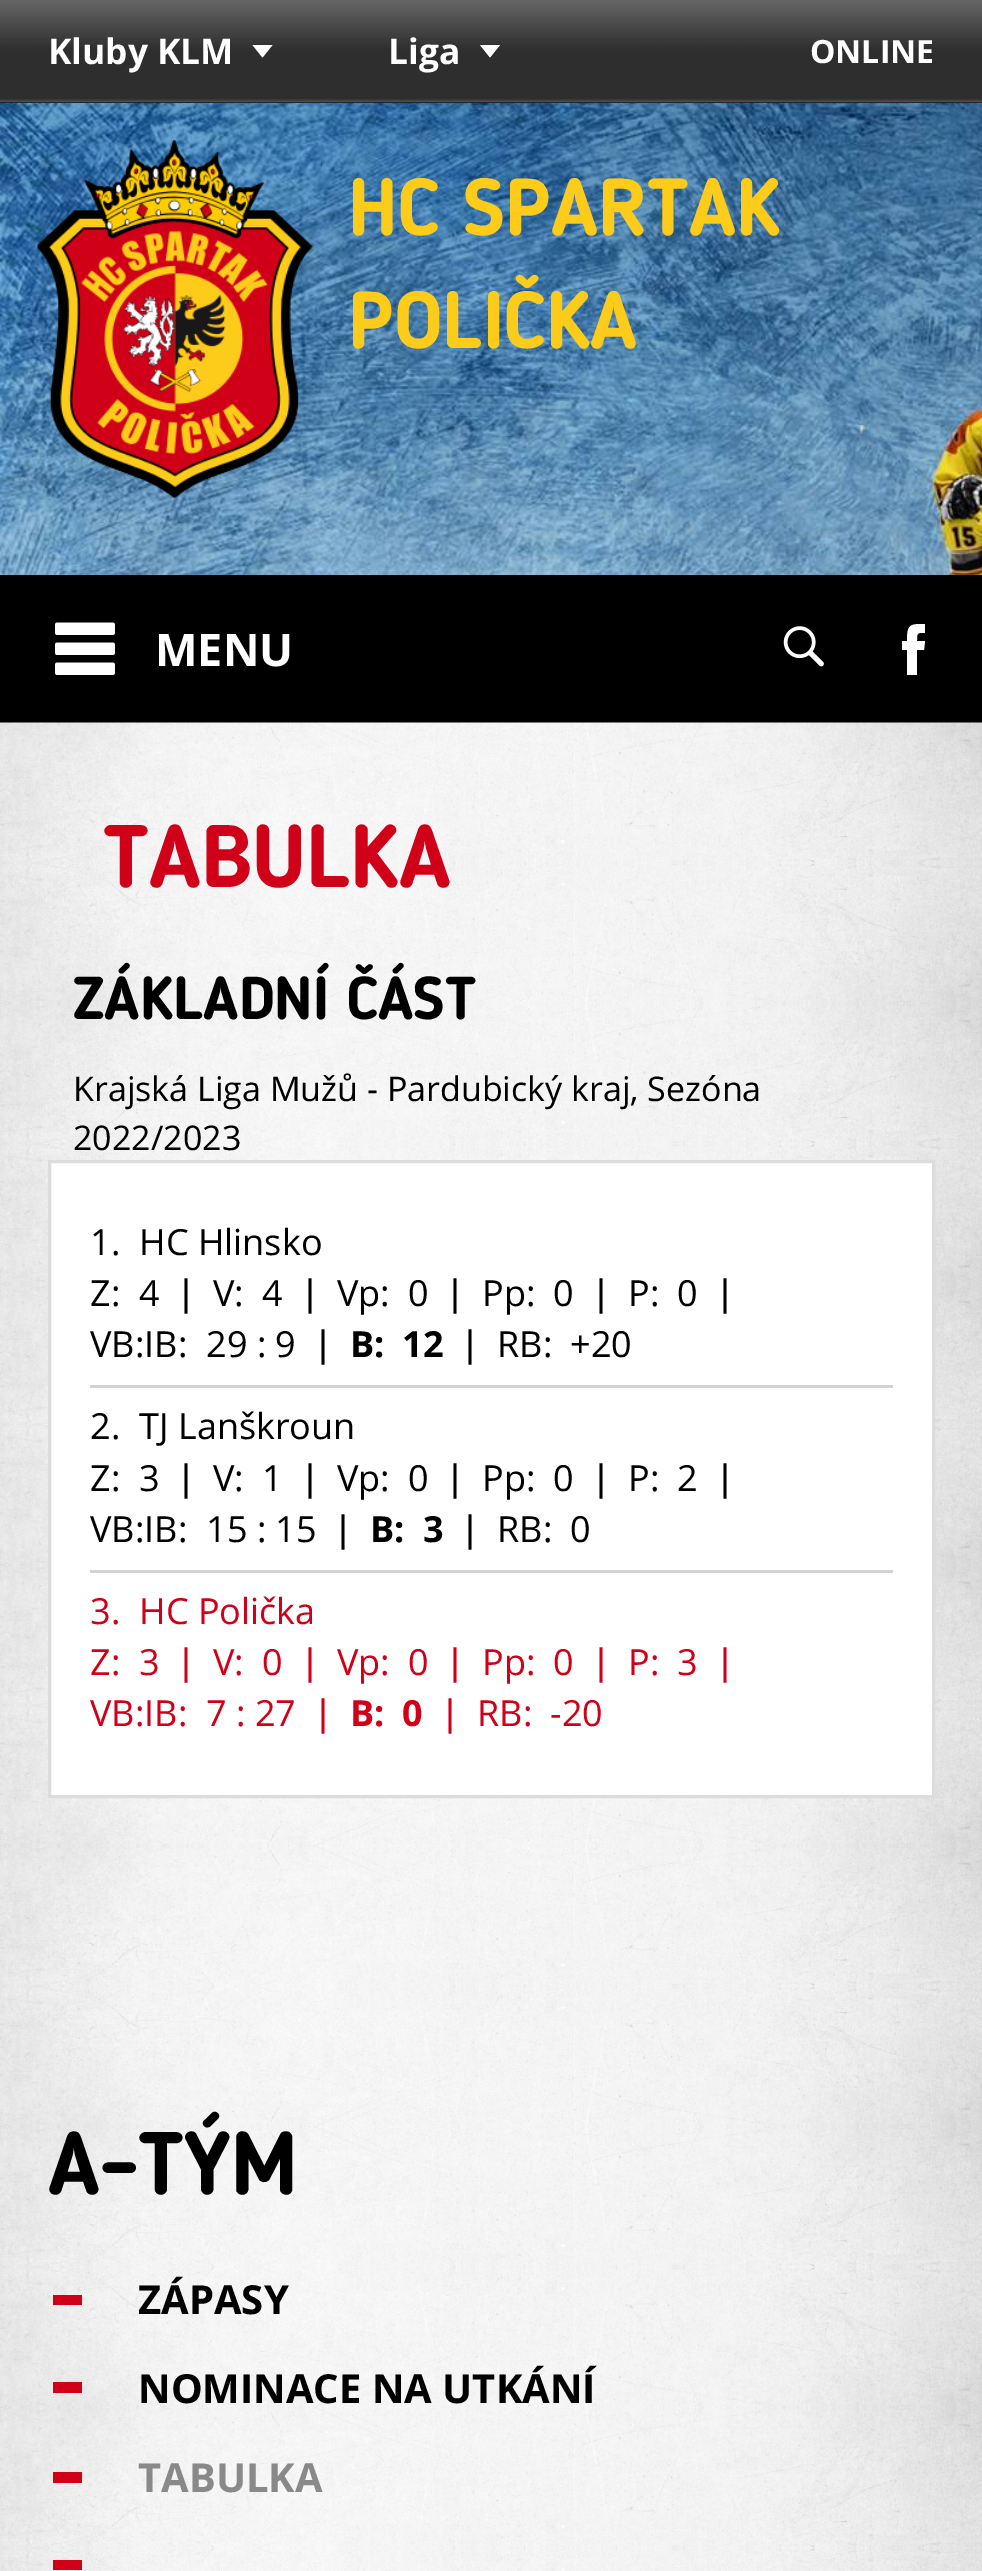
%!PS
<< /PageSize [982 2571] >> setpagedevice
/mt/moveto load def
/li/lineto load def
/ct/curveto load def
/cp/closepath load def
/fl/fill load def
/st/stroke load def
/gs/gsave load def
/gr/grestore load def
/lw/setlinewidth load def
/co { dup -16 bitshift 255 div exch dup -8 bitshift 255 and 255 div exch 255 and 255 div setrgbcolor } def
/fn { [ exch dup neg 0 0 3 -1 roll 0 0 ] selectfont } def
/tx { co fn moveto show } def
/bx { co rectfill } def
/im { 5 dict begin { /h /w /y /x /name } { exch def } forall
  gsave x y translate w h scale
  w h 8 [w 0 0 h 0 0] name (r) file false 3 colorimage grestore end } def
0 2571 translate 1 -1 scale
4 setmiterlimit
0 0 982 2571 16#000000 bx
(media/1.raw) 0 0 982 103 im
16#FFFFFF co
252.5 45 mt 272.5 45 li 262.5 57.5 li cp fl
480 45 mt 500 45 li 490 57.5 li cp fl
(media/2.raw) 0 103 982 472 im
(media/3.raw) 37 140 276 358 im
(media/4.raw) 55 622 60 53 im
(media/5.raw) 783 626 41 41 im
925 641 mt 917 641 li 917 632 917 633 925 633 ct 925 624 li 910 624 907 624 907 641 ct 902 641 li 902 650 li 907 650 li 907 675 li 917 675 li 917 650 li 924 650 li cp fl
(media/6.raw) 0 722 982 1849 im
49.5 1161.5 mt 933.5 1161.5 li 933.5 1796.5 li 49.5 1796.5 li cp gs fl gr
16#DCDCDC co
3 lw
st
90 1385 803 3 16#D2D2D2 bx
90 1570 803 3 16#D2D2D2 bx
53 2295 29 10 16#D10019 bx
53 2382 29 11 16#D10019 bx
53 2472 29 11 16#D10019 bx
53 2560 29 10 16#D10019 bx
(Kluby KLM) 48 64 /OpenSans-Bold 35.25 16#FFFFFF tx
(Liga) 388 64 /OpenSans-Bold 35.25 16#FFFFFF tx
(ONLINE) 810 63 /OpenSans-Bold 32 16#FFFFFF tx
(HC SPARTAK) 348 235 /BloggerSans-Bold 80 16#FDCC1A tx
(POLIČKA) 348 348 /BloggerSans-Bold 80 16#FDCC1A tx
(MENU) 155 666 /OpenSans-Bold 45 16#FFFFFF tx
(TABULKA) 103 887 /BloggerSans-Bold 88 16#D10019 tx
(ZÁKLADNÍ ČÁST) 73 1019 /BloggerSans-Bold 60 16#000000 tx
(Krajská Liga Mužů - Pardubický kraj, Sezóna) 73 1101 /OpenSans-Regular 34 16#000000 tx
(2022/2023) 73 1150 /OpenSans-Regular 34 16#000000 tx
(1.) 90 1255 /OpenSans-Regular 36 16#000000 tx
(HC Hlinsko) 139 1255 /OpenSans-Regular 36 16#000000 tx
(Z:) 90 1306 /OpenSans-Regular 36 16#000000 tx
(4) 139 1306 /OpenSans-Regular 36 16#000000 tx
(∣) 177 1306 /DejaVuSans-Regular 36 16#000000 tx
(V:) 213 1306 /OpenSans-Regular 36 16#000000 tx
(4) 262 1306 /OpenSans-Regular 36 16#000000 tx
(∣) 301 1306 /DejaVuSans-Regular 36 16#000000 tx
(Vp:) 337 1306 /OpenSans-Regular 36 16#000000 tx
(0) 408 1306 /OpenSans-Regular 36 16#000000 tx
(∣) 446 1306 /DejaVuSans-Regular 36 16#000000 tx
(Pp:) 482 1306 /OpenSans-Regular 36 16#000000 tx
(0) 553 1306 /OpenSans-Regular 36 16#000000 tx
(∣) 592 1306 /DejaVuSans-Regular 36 16#000000 tx
(P:) 628 1306 /OpenSans-Regular 36 16#000000 tx
(0) 677 1306 /OpenSans-Regular 36 16#000000 tx
(∣) 716 1306 /DejaVuSans-Regular 36 16#000000 tx
(VB:IB:) 90 1357 /OpenSans-Regular 36 16#000000 tx
(29 : 9) 206 1357 /OpenSans-Regular 36 16#000000 tx
(∣) 314 1357 /DejaVuSans-Regular 36 16#000000 tx
(B:) 350 1357 /OpenSans-Bold 36 16#000000 tx
(12) 402 1357 /OpenSans-Bold 36 16#000000 tx
(∣) 461 1357 /DejaVuSans-Regular 36 16#000000 tx
(RB:) 497 1357 /OpenSans-Regular 36 16#000000 tx
(+20) 570 1357 /OpenSans-Regular 36 16#000000 tx
(2.) 90 1439 /OpenSans-Regular 36 16#000000 tx
(TJ Lanškroun) 139 1439 /OpenSans-Regular 36 16#000000 tx
(Z:) 90 1491 /OpenSans-Regular 36 16#000000 tx
(3) 139 1491 /OpenSans-Regular 36 16#000000 tx
(∣) 177 1491 /DejaVuSans-Regular 36 16#000000 tx
(V:) 213 1491 /OpenSans-Regular 36 16#000000 tx
(1) 262 1491 /OpenSans-Regular 36 16#000000 tx
(∣) 301 1491 /DejaVuSans-Regular 36 16#000000 tx
(Vp:) 337 1491 /OpenSans-Regular 36 16#000000 tx
(0) 408 1491 /OpenSans-Regular 36 16#000000 tx
(∣) 446 1491 /DejaVuSans-Regular 36 16#000000 tx
(Pp:) 482 1491 /OpenSans-Regular 36 16#000000 tx
(0) 553 1491 /OpenSans-Regular 36 16#000000 tx
(∣) 592 1491 /DejaVuSans-Regular 36 16#000000 tx
(P:) 628 1491 /OpenSans-Regular 36 16#000000 tx
(2) 677 1491 /OpenSans-Regular 36 16#000000 tx
(∣) 716 1491 /DejaVuSans-Regular 36 16#000000 tx
(VB:IB:) 90 1542 /OpenSans-Regular 36 16#000000 tx
(15 : 15) 206 1542 /OpenSans-Regular 36 16#000000 tx
(∣) 334 1542 /DejaVuSans-Regular 36 16#000000 tx
(B:) 370 1542 /OpenSans-Bold 36 16#000000 tx
(3) 423 1542 /OpenSans-Bold 36 16#000000 tx
(∣) 461 1542 /DejaVuSans-Regular 36 16#000000 tx
(RB:) 497 1542 /OpenSans-Regular 36 16#000000 tx
(0) 570 1542 /OpenSans-Regular 36 16#000000 tx
(3.) 90 1624 /OpenSans-Regular 36 16#D10019 tx
(HC Polička) 139 1624 /OpenSans-Regular 36 16#D10019 tx
(Z:) 90 1675 /OpenSans-Regular 36 16#D10019 tx
(3) 139 1675 /OpenSans-Regular 36 16#D10019 tx
(∣) 177 1675 /DejaVuSans-Regular 36 16#D10019 tx
(V:) 213 1675 /OpenSans-Regular 36 16#D10019 tx
(0) 262 1675 /OpenSans-Regular 36 16#D10019 tx
(∣) 301 1675 /DejaVuSans-Regular 36 16#D10019 tx
(Vp:) 337 1675 /OpenSans-Regular 36 16#D10019 tx
(0) 408 1675 /OpenSans-Regular 36 16#D10019 tx
(∣) 446 1675 /DejaVuSans-Regular 36 16#D10019 tx
(Pp:) 482 1675 /OpenSans-Regular 36 16#D10019 tx
(0) 553 1675 /OpenSans-Regular 36 16#D10019 tx
(∣) 592 1675 /DejaVuSans-Regular 36 16#D10019 tx
(P:) 628 1675 /OpenSans-Regular 36 16#D10019 tx
(3) 677 1675 /OpenSans-Regular 36 16#D10019 tx
(∣) 716 1675 /DejaVuSans-Regular 36 16#D10019 tx
(VB:IB:) 90 1726 /OpenSans-Regular 36 16#D10019 tx
(7 : 27) 206 1726 /OpenSans-Regular 36 16#D10019 tx
(∣) 314 1726 /DejaVuSans-Regular 36 16#D10019 tx
(B:) 350 1726 /OpenSans-Bold 36 16#D10019 tx
(0) 402 1726 /OpenSans-Bold 36 16#D10019 tx
(∣) 441 1726 /DejaVuSans-Regular 36 16#D10019 tx
(RB:) 477 1726 /OpenSans-Regular 36 16#D10019 tx
(-20) 550 1726 /OpenSans-Regular 36 16#D10019 tx
(A-TÝM) 48 2194 /BloggerSans-Bold 88 16#000000 tx
(ZÁPASY) 138 2314 /OpenSans-Bold 40 16#000000 tx
(NOMINACE NA UTKÁNÍ) 138 2403 /OpenSans-Bold 40 16#000000 tx
(TABULKA) 138 2492 /OpenSans-Bold 40 16#898989 tx
showpage
